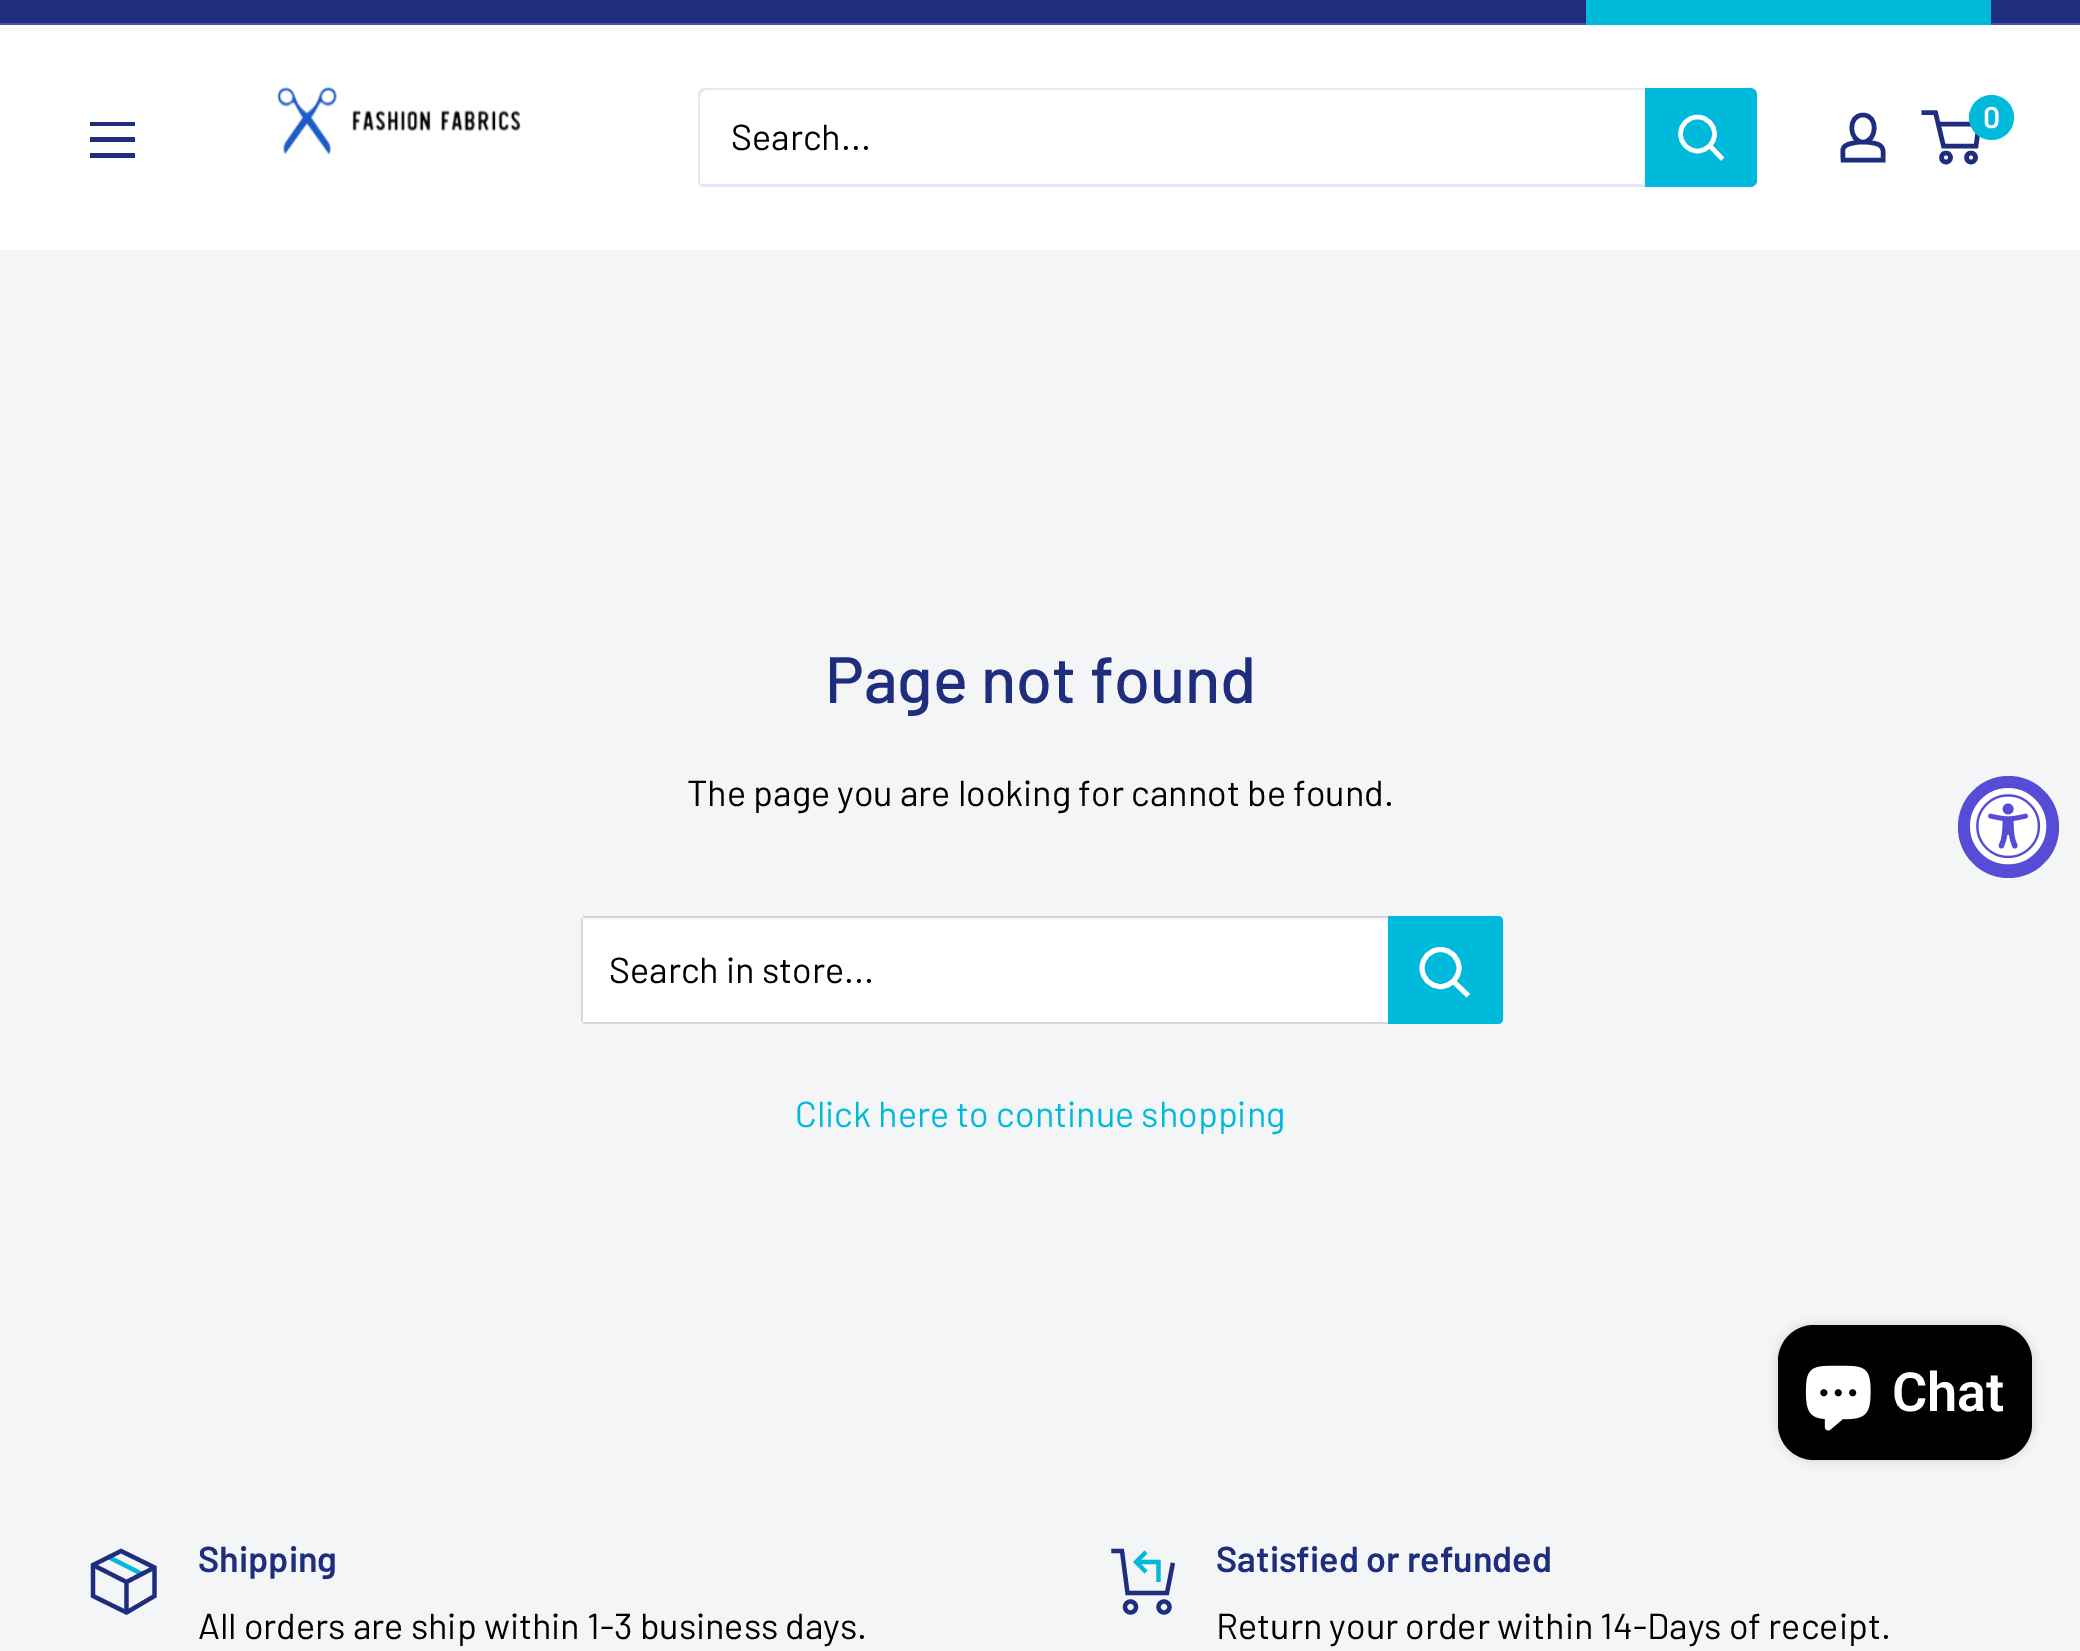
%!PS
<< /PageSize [2080 1651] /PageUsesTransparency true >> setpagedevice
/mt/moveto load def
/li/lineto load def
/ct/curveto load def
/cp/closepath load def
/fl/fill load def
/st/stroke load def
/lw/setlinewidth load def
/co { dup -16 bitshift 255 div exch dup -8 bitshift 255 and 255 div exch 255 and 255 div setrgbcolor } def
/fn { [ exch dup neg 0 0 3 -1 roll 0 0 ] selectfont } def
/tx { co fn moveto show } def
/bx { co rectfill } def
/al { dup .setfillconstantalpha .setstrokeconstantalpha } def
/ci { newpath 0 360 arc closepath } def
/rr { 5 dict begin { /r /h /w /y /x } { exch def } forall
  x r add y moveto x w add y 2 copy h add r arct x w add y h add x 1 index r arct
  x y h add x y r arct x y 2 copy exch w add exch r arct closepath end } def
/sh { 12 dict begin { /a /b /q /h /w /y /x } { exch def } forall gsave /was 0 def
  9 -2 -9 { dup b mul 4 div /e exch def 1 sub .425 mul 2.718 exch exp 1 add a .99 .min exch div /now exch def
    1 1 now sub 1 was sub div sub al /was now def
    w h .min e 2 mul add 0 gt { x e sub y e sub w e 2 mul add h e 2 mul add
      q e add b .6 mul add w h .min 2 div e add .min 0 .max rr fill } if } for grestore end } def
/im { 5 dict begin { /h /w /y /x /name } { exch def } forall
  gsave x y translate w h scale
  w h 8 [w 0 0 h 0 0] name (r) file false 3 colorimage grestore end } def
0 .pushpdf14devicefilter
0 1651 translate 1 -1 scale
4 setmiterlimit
0 0 2080 1651 16#F3F5F6 bx
0 0 2080 23 16#1E2D7D bx
0 23 2080 2 16#46549F bx
16#00BADB co
1586 -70 mt 1586 25 li 1991 25 li 1991 22 li 1586 22 li cp fl
1586 0 405 22 16#00BADB bx
0 25 2080 225 16#FFFFFF bx
(media/1.raw) 277 86 244 69 im
16#1E2D7D co
4.5 lw
1863 142 mt 1867 142 1871.5 142.5 1875.5 143.5 ct 1885 146 1883 151.5 1883 160 ct 1843 160 li 1843 150.5 1840.5 146 1851 143.5 ct 1855 142.5 1859 142 1863 142 ct cp 1863 142 mt 1849 142 1847 115 1863 115 ct 1879 115 1877 142 1863 142 ct cp st
1946 157.5 4.5 ci st
1971 157.5 4.5 ci st
1938 124 mt 1979 124 li 1976 146 li 1943.5 146 li 1935.5 112.5 li 1921.5 112.5 li st
16#00BADB co
1991.5 117.5 22.5 ci fl
16#1E2D7D co
90 153 mt 135 153 li 135 158 li 90 158 li cp 90 122 mt 135 122 li 135 126 li 90 126 li cp 90 137 mt 135 137 li 135 142 li 90 142 li cp eofill
16#E3E7FA co
699 183 mt 700 186 702 187 705 187 ct 1750 187 li 1754 187 1757 184 1757 180 ct 1757 95 li 1757 93 1756 91 1754 89 ct 1755 92 li 1755 178 li 1755 181 1752 184 1748 184 ct 702 184 li cp fl
0.3 al
16#A3AFEF co
706 90 mt 1753 90 li 1755 91 li 1754 89 1752 88 1750 88 ct 705 88 li 701 88 698 91 698 95 ct 698 180 li 698 182 699 184 701 186 ct 700 182 li 700 97 li 700 93 703 90 706 90 ct cp fl
1 al
16#00BADB co
1645 88 mt 1750 88 li 1754 88 1757 91 1757 95 ct 1757 180 li 1757 184 1754 187 1750 187 ct 1645 187 li cp fl
16#FFFFFF co
2 setlinecap
1721 157.5 mt 1710 146 li st
0 setlinecap
1697.5 134 17 ci st
586 916 mt 1388 916 li 1388 1024 li 586 1024 li 583 1024 581 1022 581 1019 ct 581 921 li 581 918 583 916 586 916 ct cp fl
16#F8F8F8 co
585 920 mt 1388 920 li 1388 918 li 585 918 li 583 919 li 583 922 li 583 921 584 920 585 920 ct cp fl
583 916 805 2 16#D4D6D8 bx
583 1022 805 2 16#D4D6D8 bx
581 918 2 104 16#D4D6D8 bx
16#00BADB co
1388 916 mt 1498 916 li 1501 916 1503 918 1503 921 ct 1503 1019 li 1503 1022 1501 1024 1498 1024 ct 1388 1024 li cp fl
16#FFFFFF co
4.9 lw
2 setlinecap
1466.5 994 mt 1454 982 li st
0 setlinecap
1440.5 968 18.5 ci st
16#574CD5 co
1958 776 101 102 50.5 rr fl
(media/2.raw) 1970 788 77 77 im
16#000000 co
1778 1325 254 135 36 5.5 .15 sh
1778 1325 254 135 36 rr fl
(media/3.raw) 1805 1365 66 66 im
16#00BADB co
4.2 lw
108.5 1557 mt 142 1574 li st
16#1E2D7D co
154.5 1567.5 mt 126.5 1582 li 93 1565 li 126.5 1582 mt 126.5 1612.5 li st
2 setlinecap
154.5 1567.5 mt 154.5 1596 li 126.5 1612.5 li 93 1596 li 93 1565 li 121 1551 li cp st
16#00BADB co
0 setlinecap
1136 1562 mt 1158.5 1562 li 1158.5 1582 li st
2 setlinecap
1144.5 1570.5 mt 1136 1562 li 1144.5 1553.5 li st
16#1E2D7D co
1172.5 1565 mt 1167 1593 li 1127.5 1593 li 1122 1551 li 1113.5 1551 li st
0 setlinecap
1130.5 1607 5.5 ci st
1164 1607 5.5 ci st
(0) 1983 128 /Barlow-SemiBold 30 16#FFFFFF tx
(Search...) 731 150 /Barlow-Regular 36 16#000000 tx
(Page not found) 825 703 /Barlow-Medium 65.25 16#1E2D7D tx
(The page you are looking for cannot be found.) 687 806 /Barlow-Regular 36 16#000000 tx
(Search in store...) 609 983 /Barlow-Regular 36 16#000000 tx
(Click here to continue shopping) 795 1127 /Barlow-Regular 36 16#00BADB tx
(Chat) 1892 1411 /Roboto-SemiBold 54 16#FFFFFF tx
(Shipping) 198 1572 /Barlow-SemiBold 36 16#1E2D7D tx
(All orders are ship within 1-3 business days.) 198 1639 /Barlow-Regular 36 16#000000 tx
(Satisfied or refunded) 1216 1572 /Barlow-SemiBold 36 16#1E2D7D tx
(Return your order within 14-Days of receipt.) 1216 1639 /Barlow-Regular 36 16#000000 tx
.poppdf14devicefilter showpage
